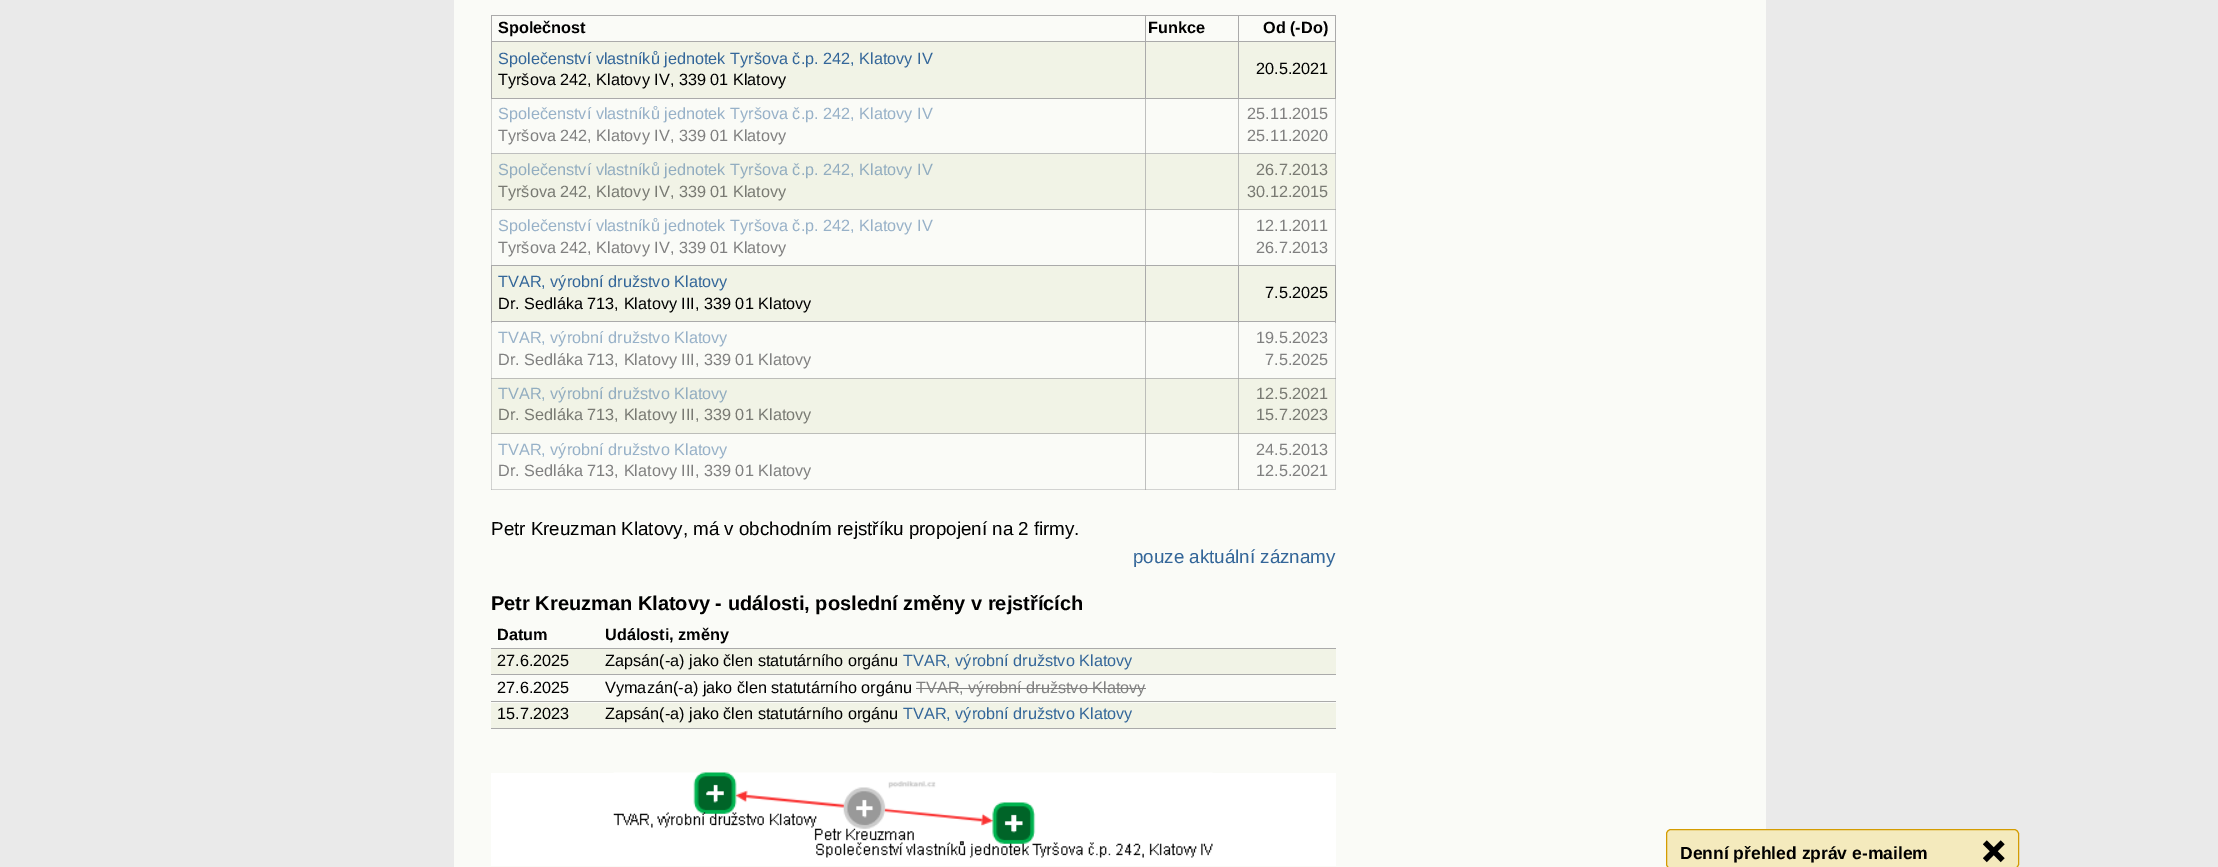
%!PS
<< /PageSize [2218 867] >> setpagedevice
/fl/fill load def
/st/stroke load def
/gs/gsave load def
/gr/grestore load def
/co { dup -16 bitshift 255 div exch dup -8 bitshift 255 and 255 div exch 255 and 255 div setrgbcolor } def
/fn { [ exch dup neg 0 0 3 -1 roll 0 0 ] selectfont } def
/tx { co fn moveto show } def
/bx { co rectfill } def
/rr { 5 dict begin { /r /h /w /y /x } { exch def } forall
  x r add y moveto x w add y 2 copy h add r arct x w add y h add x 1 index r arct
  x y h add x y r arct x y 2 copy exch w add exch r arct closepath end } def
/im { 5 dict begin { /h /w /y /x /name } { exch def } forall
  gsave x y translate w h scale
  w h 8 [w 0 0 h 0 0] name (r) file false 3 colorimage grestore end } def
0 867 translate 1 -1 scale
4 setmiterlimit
0 0 2218 867 16#EAEAEA bx
454 0 1312 867 16#FAFBF7 bx
491 98 1 56 16#D2D3D1 bx
1145 98 1 56 16#BEBFBE bx
1238 98 1 56 16#BEBFBE bx
1335 98 1 168 16#D2D3D1 bx
491 153 845 1 16#BEBFBE bx
491 153 1 1 16#AFB0AF bx
1145 153 1 1 16#ABABAB bx
491 209 1 57 16#D2D3D1 bx
1145 209 1 57 16#BEBFBE bx
1238 209 1 57 16#BEBFBE bx
1335 209 1 1 16#AFB0AF bx
491 321 1 58 16#D2D3D1 bx
1145 321 1 58 16#BEBFBE bx
1238 321 1 58 16#BEBFBE bx
1335 321 1 169 16#D2D3D1 bx
1335 378 1 1 16#AFB0AF bx
491 433 1 57 16#D2D3D1 bx
491 489 655 1 16#D2D3D1 bx
491 489 1 1 16#BEBFBE bx
1145 433 1 57 16#BEBFBE bx
1145 489 94 1 16#D2D3D1 bx
1145 489 1 1 16#AFB0AF bx
1238 433 1 57 16#BEBFBE bx
1238 15 98 1 16#AAAAAA bx
492 42 843 56 16#F1F3E6 bx
1238 41 98 1 16#AAAAAA bx
1335 41 1 58 16#AAAAAA bx
1238 98 98 1 16#AAAAAA bx
1238 41 1 58 16#AAAAAA bx
1145 41 94 1 16#AAAAAA bx
1238 15 1 28 16#AAAAAA bx
1145 15 94 1 16#AAAAAA bx
1145 98 94 1 16#AAAAAA bx
1145 41 1 58 16#AAAAAA bx
491 41 655 1 16#AAAAAA bx
1145 15 1 28 16#AAAAAA bx
491 15 655 1 16#AAAAAA bx
491 98 655 1 16#AAAAAA bx
491 41 1 58 16#AAAAAA bx
491 15 1 28 16#AAAAAA bx
1335 15 1 28 16#AAAAAA bx
492 154 843 55 16#F1F3E6 bx
491 154 1 56 16#CECFC8 bx
1145 154 1 56 16#BCBDB9 bx
1238 154 1 56 16#BCBDB9 bx
491 209 844 1 16#BCBDB9 bx
491 209 1 1 16#AFAFAE bx
1145 209 1 1 16#ABABAB bx
1238 209 1 1 16#ABABAB bx
1238 153 1 1 16#ABABAB bx
1335 153 1 1 16#AFB0AF bx
492 266 843 55 16#F1F3E6 bx
1238 265 98 1 16#AAAAAA bx
1335 265 1 58 16#AAAAAA bx
1238 321 98 1 16#AAAAAA bx
1238 265 1 58 16#AAAAAA bx
1145 265 94 1 16#AAAAAA bx
1145 321 94 1 16#AAAAAA bx
1145 265 1 58 16#AAAAAA bx
491 265 655 1 16#AAAAAA bx
491 321 655 1 16#AAAAAA bx
491 265 1 58 16#AAAAAA bx
492 379 843 54 16#F1F3E6 bx
491 378 1 56 16#CECFC8 bx
491 378 655 1 16#BCBDB9 bx
491 378 1 1 16#AFAFAE bx
1145 378 1 56 16#BCBDB9 bx
1145 378 94 1 16#BCBDB9 bx
1145 378 1 1 16#ABABAB bx
1238 378 1 56 16#BCBDB9 bx
1238 378 97 1 16#BCBDB9 bx
1238 378 1 1 16#ABABAB bx
491 433 844 1 16#BCBDB9 bx
491 433 1 1 16#AFAFAE bx
1145 433 1 1 16#ABABAB bx
1238 433 1 1 16#ABABAB bx
1335 433 1 1 16#B4B5B4 bx
1238 489 98 1 16#D2D3D1 bx
1238 489 1 1 16#AFB0AF bx
491 648 845 1 16#AAAAAA bx
491 649 845 25 16#F1F3E6 bx
491 674 845 1 16#AAAAAA bx
491 701 845 1 16#AAAAAA bx
916 688 230 1 16#808080 bx
491 703 845 25 16#F1F3E6 bx
491 728 845 1 16#AAAAAA bx
491 773 845 93 16#FFFFFF bx
(media/1.raw) 613 772 600 86 im
16#F4EABD co
1666.5 829.5 352 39 4.5 rr gs fl gr
16#D49C01 co
st
(media/2.raw) 1983 840 22 23 im
(Společnost) 498 33 /LiberationSans-Bold 16.25 16#000000 tx
(Funkce) 1148 33 /LiberationSans-Bold 16.25 16#000000 tx
(Od \(-Do\)) 1263 33 /LiberationSans-Bold 16.25 16#000000 tx
(Společenství vlastníků jednotek Tyršova č.p. 242, Klatovy IV) 498 64 /LiberationSans-Regular 16.25 16#336699 tx
(Tyršova 242, Klatovy IV, 339 01 Klatovy) 498 85 /LiberationSans-Regular 16.25 16#000000 tx
(20.5.2021) 1256 74 /LiberationSans-Regular 16.25 16#000000 tx
(Společenství vlastníků jednotek Tyršova č.p. 242, Klatovy IV) 498 119 /LiberationSans-Regular 16.25 16#97B1C8 tx
(Tyršova 242, Klatovy IV, 339 01 Klatovy) 498 141 /LiberationSans-Regular 16.25 16#808080 tx
(25.11.2015) 1247 119 /LiberationSans-Regular 16.25 16#808080 tx
(25.11.2020) 1247 141 /LiberationSans-Regular 16.25 16#808080 tx
(Společenství vlastníků jednotek Tyršova č.p. 242, Klatovy IV) 498 175 /LiberationSans-Regular 16.25 16#92ADC0 tx
(Tyršova 242, Klatovy IV, 339 01 Klatovy) 498 197 /LiberationSans-Regular 16.25 16#797A73 tx
(26.7.2013) 1256 175 /LiberationSans-Regular 16.25 16#797A73 tx
(30.12.2015) 1247 197 /LiberationSans-Regular 16.25 16#797A73 tx
(Společenství vlastníků jednotek Tyršova č.p. 242, Klatovy IV) 498 231 /LiberationSans-Regular 16.25 16#97B1C8 tx
(Tyršova 242, Klatovy IV, 339 01 Klatovy) 498 253 /LiberationSans-Regular 16.25 16#808080 tx
(12.1.2011) 1256 231 /LiberationSans-Regular 16.25 16#808080 tx
(26.7.2013) 1256 253 /LiberationSans-Regular 16.25 16#808080 tx
(TVAR, výrobní družstvo Klatovy) 498 287 /LiberationSans-Regular 16.25 16#336699 tx
(Dr. Sedláka 713, Klatovy III, 339 01 Klatovy) 498 309 /LiberationSans-Regular 16.25 16#000000 tx
(7.5.2025) 1265 298 /LiberationSans-Regular 16.25 16#000000 tx
(TVAR, výrobní družstvo Klatovy) 498 343 /LiberationSans-Regular 16.25 16#97B1C8 tx
(Dr. Sedláka 713, Klatovy III, 339 01 Klatovy) 498 365 /LiberationSans-Regular 16.25 16#808080 tx
(19.5.2023) 1256 343 /LiberationSans-Regular 16.25 16#808080 tx
(7.5.2025) 1265 365 /LiberationSans-Regular 16.25 16#808080 tx
(TVAR, výrobní družstvo Klatovy) 498 399 /LiberationSans-Regular 16.25 16#92ADC0 tx
(Dr. Sedláka 713, Klatovy III, 339 01 Klatovy) 498 420 /LiberationSans-Regular 16.25 16#797A73 tx
(12.5.2021) 1256 399 /LiberationSans-Regular 16.25 16#797A73 tx
(15.7.2023) 1256 420 /LiberationSans-Regular 16.25 16#797A73 tx
(TVAR, výrobní družstvo Klatovy) 498 455 /LiberationSans-Regular 16.25 16#97B1C8 tx
(Dr. Sedláka 713, Klatovy III, 339 01 Klatovy) 498 476 /LiberationSans-Regular 16.25 16#808080 tx
(24.5.2013) 1256 455 /LiberationSans-Regular 16.25 16#808080 tx
(12.5.2021) 1256 476 /LiberationSans-Regular 16.25 16#808080 tx
(Petr Kreuzman Klatovy, má v obchodním rejstříku propojení na 2 firmy.) 491 535 /LiberationSans-Regular 18.75 16#000000 tx
(pouze aktuální záznamy) 1133 563 /LiberationSans-Regular 18.75 16#336699 tx
(Petr Kreuzman Klatovy - události, poslední změny v rejstřících) 491 610 /LiberationSans-Bold 20 16#000000 tx
(Datum) 497 640 /LiberationSans-Bold 16.25 16#000000 tx
(Události, změny) 605 640 /LiberationSans-Bold 16.25 16#000000 tx
(27.6.2025) 497 666 /LiberationSans-Regular 16.25 16#000000 tx
(Zapsán\(-a\) jako člen statutárního orgánu) 605 666 /LiberationSans-Regular 16.25 16#000000 tx
(TVAR, výrobní družstvo Klatovy) 903 666 /LiberationSans-Regular 16.25 16#336699 tx
(27.6.2025) 497 693 /LiberationSans-Regular 16.25 16#000000 tx
(Vymazán\(-a\) jako člen statutárního orgánu) 605 693 /LiberationSans-Regular 16.25 16#000000 tx
(TVAR, výrobní družstvo Klatovy) 916 693 /LiberationSans-Regular 16.25 16#808080 tx
(15.7.2023) 497 719 /LiberationSans-Regular 16.25 16#000000 tx
(Zapsán\(-a\) jako člen statutárního orgánu) 605 719 /LiberationSans-Regular 16.25 16#000000 tx
(TVAR, výrobní družstvo Klatovy) 903 719 /LiberationSans-Regular 16.25 16#336699 tx
(Denní přehled zpráv e-mailem) 1680 859 /LiberationSans-Bold 17.5 16#000000 tx
showpage
